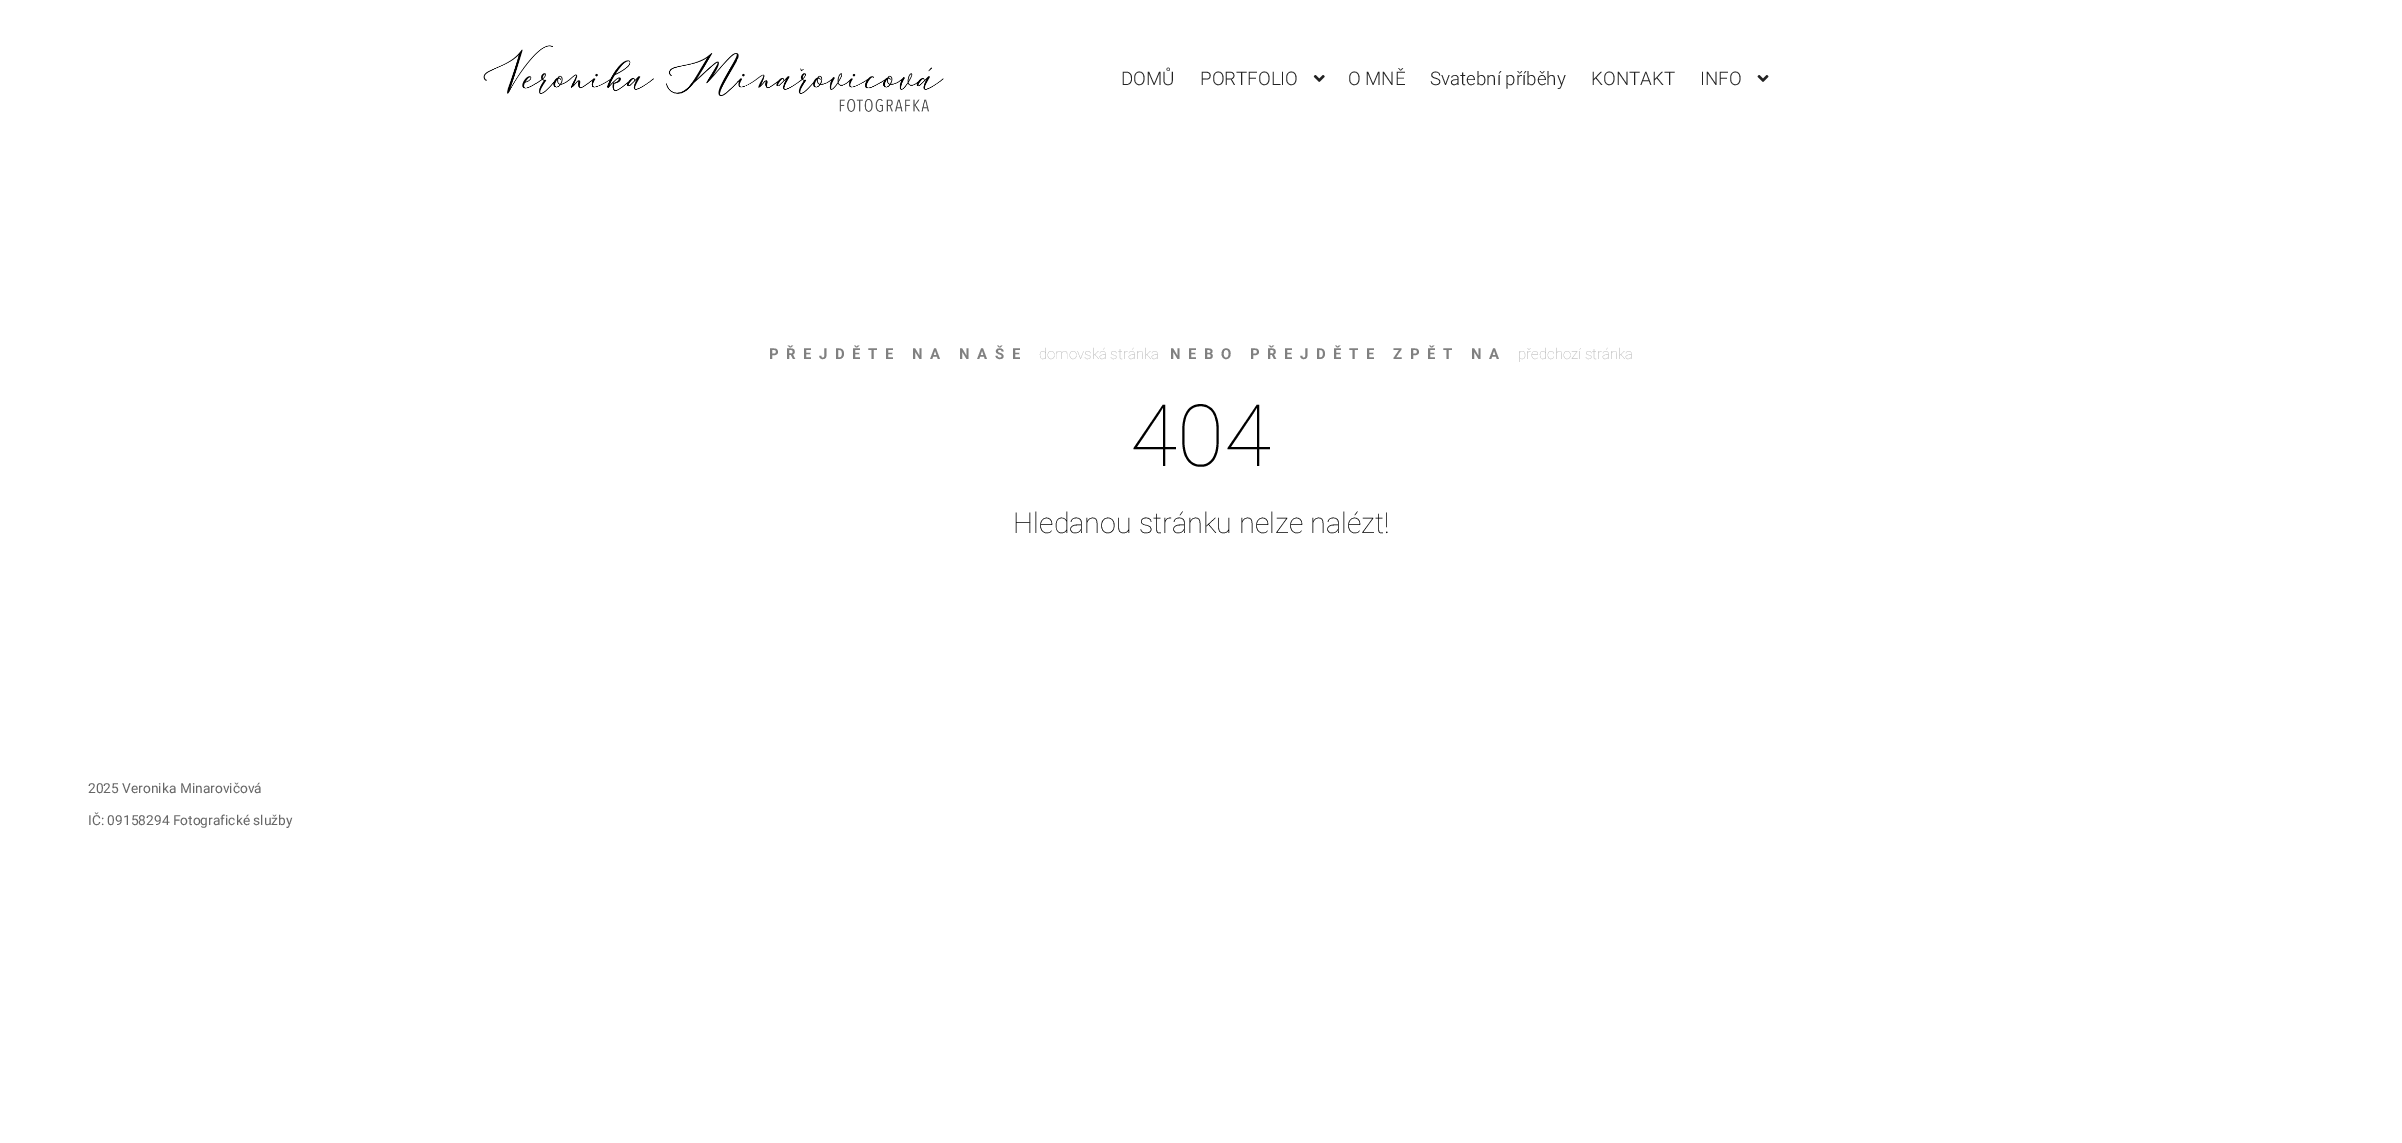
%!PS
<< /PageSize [2402 1143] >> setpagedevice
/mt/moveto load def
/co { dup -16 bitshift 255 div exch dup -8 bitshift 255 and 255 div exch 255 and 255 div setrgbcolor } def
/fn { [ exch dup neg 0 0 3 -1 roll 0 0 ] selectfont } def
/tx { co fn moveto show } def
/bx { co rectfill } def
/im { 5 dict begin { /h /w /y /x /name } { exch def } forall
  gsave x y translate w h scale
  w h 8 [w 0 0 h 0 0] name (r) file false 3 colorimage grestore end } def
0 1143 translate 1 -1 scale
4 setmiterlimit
0 0 2402 1143 16#FFFFFF bx
(media/1.raw) 483 45 461 67 im
(media/2.raw) 1313 75 12 7 im
(media/3.raw) 1757 75 12 7 im
(DOMŮ) 1121 85 /Roboto-Light 18.75 16#222222 tx
(PORTFOLIO) 1200 85 /Roboto-Light 18.75 16#222222 tx
(O MNĚ) 1348 85 /Roboto-Light 18.75 16#222222 tx
(Svatební příběhy) 1430 85 /Roboto-Light 18.75 16#222222 tx
(KONTAKT) 1591 85 /Roboto-Light 18.75 16#222222 tx
(INFO) 1700 85 /Roboto-Light 18.75 16#222222 tx
/Roboto-Bold 15 fn
16#808080 co
769 359 mt 7.5 0 (PŘEJDĚTE NA NAŠE) ashow
(domovská stránka) 1039 359 /Roboto-Thin 15 16#B3B3B3 tx
/Roboto-Bold 15 fn
16#808080 co
1170 359 mt 7.5 0 (NEBO PŘEJDĚTE ZPĚT NA) ashow
(předchozí stránka) 1518 359 /Roboto-Thin 15 16#B3B3B3 tx
(404) 1130 466 /Roboto-Thin 86 16#000000 tx
(Hledanou stránku nelze nalézt!) 1013 533 /Roboto-Thin 28.75 16#000000 tx
(2025 Veronika Minarovičová) 88 793 /Roboto-Regular 13.75 16#666666 tx
(IČ: 09158294 Fotografické služby) 88 825 /Roboto-Regular 13.75 16#666666 tx
showpage
